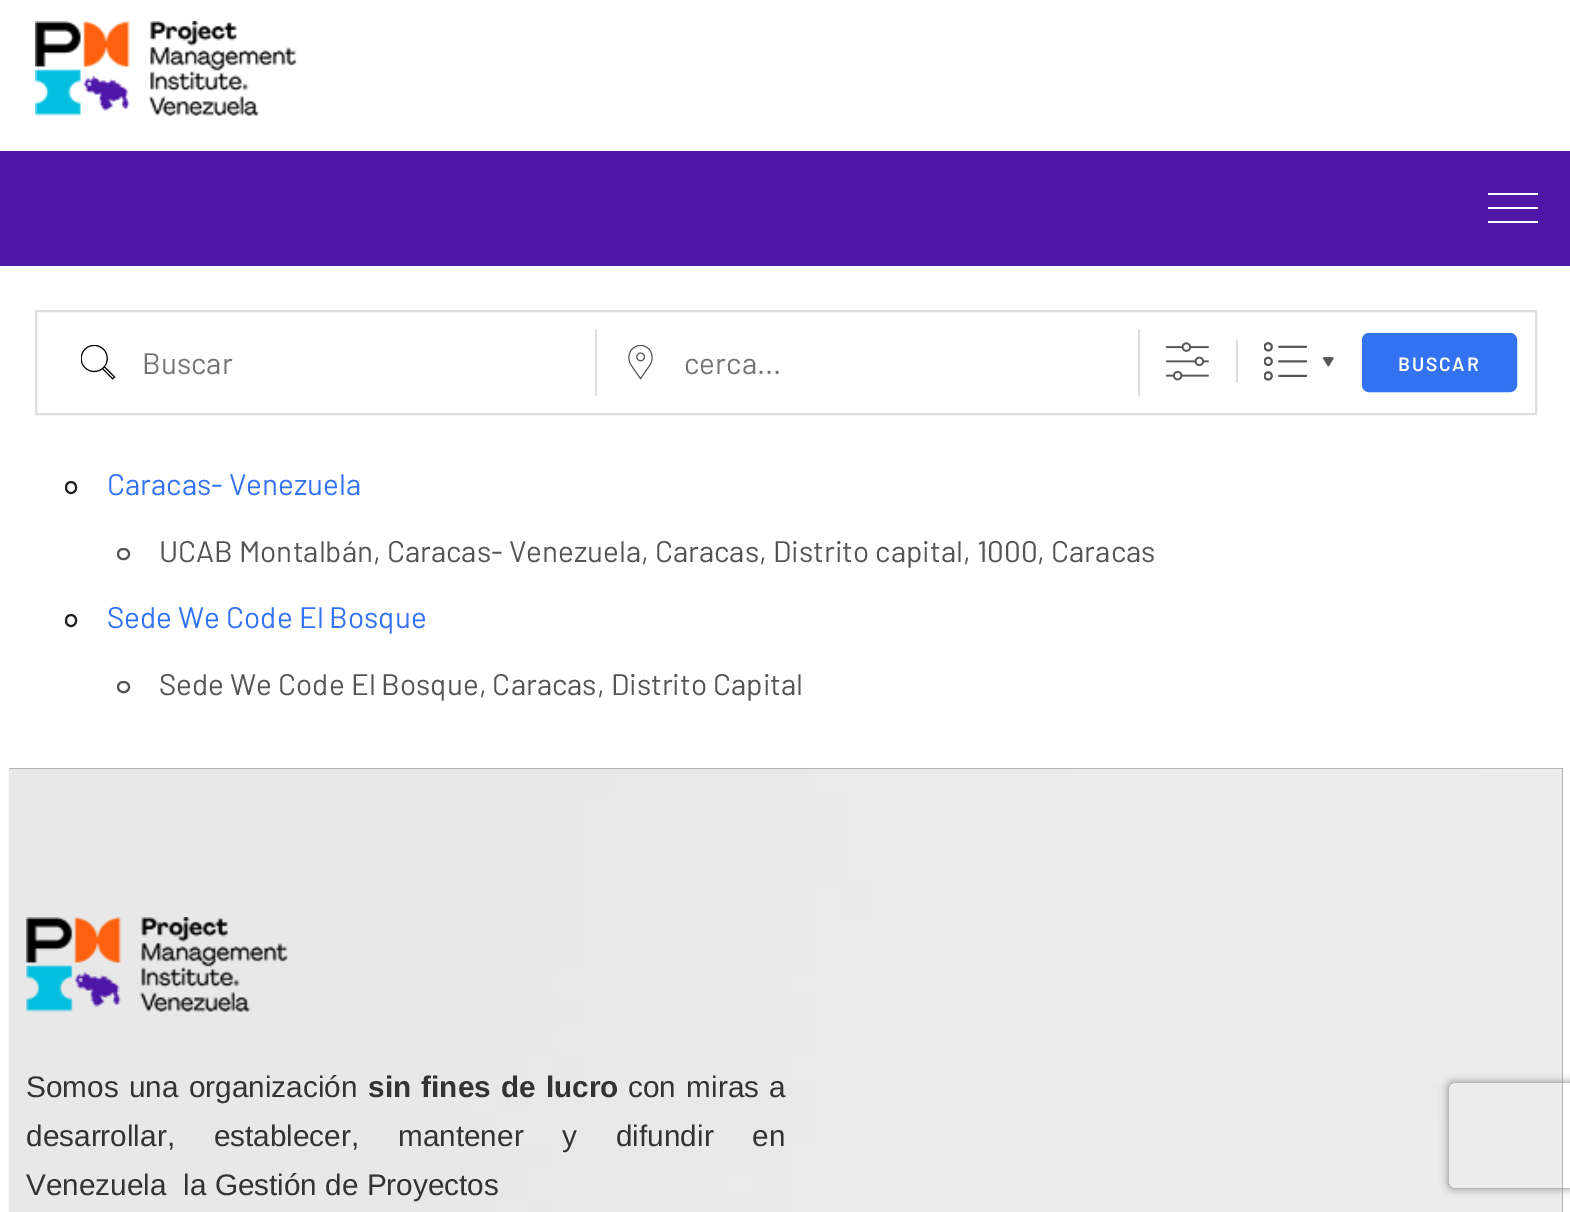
%!PS
<< /PageSize [1570 1212] /PageUsesTransparency true >> setpagedevice
/mt/moveto load def
/li/lineto load def
/ct/curveto load def
/cp/closepath load def
/fl/fill load def
/st/stroke load def
/gs/gsave load def
/gr/grestore load def
/lw/setlinewidth load def
/co { dup -16 bitshift 255 div exch dup -8 bitshift 255 and 255 div exch 255 and 255 div setrgbcolor } def
/fn { [ exch dup neg 0 0 3 -1 roll 0 0 ] selectfont } def
/tx { co fn moveto show } def
/bx { co rectfill } def
/al { dup .setfillconstantalpha .setstrokeconstantalpha } def
/rr { 5 dict begin { /r /h /w /y /x } { exch def } forall
  x r add y moveto x w add y 2 copy h add r arct x w add y h add x 1 index r arct
  x y h add x y r arct x y 2 copy exch w add exch r arct closepath end } def
/sh { 12 dict begin { /a /b /q /h /w /y /x } { exch def } forall gsave /was 0 def
  9 -2 -9 { dup b mul 4 div /e exch def 1 sub .425 mul 2.718 exch exp 1 add a .99 .min exch div /now exch def
    1 1 now sub 1 was sub div sub al /was now def
    w h .min e 2 mul add 0 gt { x e sub y e sub w e 2 mul add h e 2 mul add
      q e add b .6 mul add w h .min 2 div e add .min 0 .max rr fill } if } for grestore end } def
/im { 5 dict begin { /h /w /y /x /name } { exch def } forall
  gsave x y translate w h scale
  w h 8 [w 0 0 h 0 0] name (r) file false 3 colorimage grestore end } def
0 .pushpdf14devicefilter
0 1212 translate 1 -1 scale
4 setmiterlimit
0 0 1570 1212 16#FFFFFF bx
(media/1.raw) 35 21 262 95 im
0 151 1570 115 16#4F17A8 bx
1488 193 50 2 16#FFFFFF bx
1488 207 50 2 16#FFFFFF bx
1488 221 50 2 16#FFFFFF bx
16#DEDEDE co
2 lw
36 311 1500 103 rectstroke
595 329 2 67 16#DEDEDE bx
(media/2.raw) 81 345 35 35 im
1138 329 2 67 16#DEDEDE bx
(media/3.raw) 628 345 25 35 im
(media/4.raw) 1166 342 43 39 im
1236 340 2 43 16#DEDEDE bx
(media/5.raw) 1322 357 12 10 im
(media/6.raw) 1264 342 43 39 im
16#3372F0 co
1363 334 153 57 6 rr gs fl gr
st
16#212121 co
66 482 10 11 5 rr st
16#545454 co
118 549 11 10 5 rr st
16#212121 co
66 615 10 11 5 rr st
16#545454 co
118 682 11 10 5 rr st
9 768 1554 444 16#100E1C bx
(media/7.raw) 8 768 1555 444 im
(media/8.raw) 26 917 262 95 im
gs
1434 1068 mt 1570 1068 li 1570 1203 li 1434 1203 li cp 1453 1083 mt 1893 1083 li 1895 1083 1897 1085 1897 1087 ct 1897 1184 li 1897 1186 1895 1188 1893 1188 ct 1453 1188 li 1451 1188 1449 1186 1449 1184 ct 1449 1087 li 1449 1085 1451 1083 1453 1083 ct cp eoclip newpath
16#808080 co
1449 1083 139 105 4 4.5 1 sh
gr
(Buscar) 142 374 /Barlow-Regular 29.75 16#757575 tx
(cerca...) 684 374 /Barlow-Regular 29.75 16#757575 tx
/Barlow-SemiBold 19.25 fn
16#FFFFFF co
1398 371 mt 1.75 0 (BUSCAR) ashow
(Caracas- Venezuela) 107 495 /Barlow-Regular 29.75 16#3372F0 tx
(UCAB Montalbán, Caracas- Venezuela, Caracas, Distrito capital, 1000, Caracas) 159 562 /Barlow-Regular 29.75 16#545454 tx
(Sede We Code El Bosque) 107 628 /Barlow-Regular 29.75 16#3372F0 tx
(Sede We Code El Bosque, Caracas, Distrito Capital) 159 695 /Barlow-Regular 29.75 16#545454 tx
/LiberationSans-Regular 29.75 fn
16#333333 co
26 1097 mt 2 0 32 (Somos una organización) widthshow
/LiberationSans-Bold 29.75 fn
368 1097 mt 2 0 32 (sin fines de lucro) widthshow
/LiberationSans-Regular 29.75 fn
628 1097 mt 2 0 32 (con miras a) widthshow
26 1146 mt 30.5 0 32 (desarrollar, establecer, mantener y difundir en) widthshow
(Venezuela  la Gestión de Proyectos) 26 1195 /LiberationSans-Regular 29.75 16#333333 tx
.poppdf14devicefilter showpage
